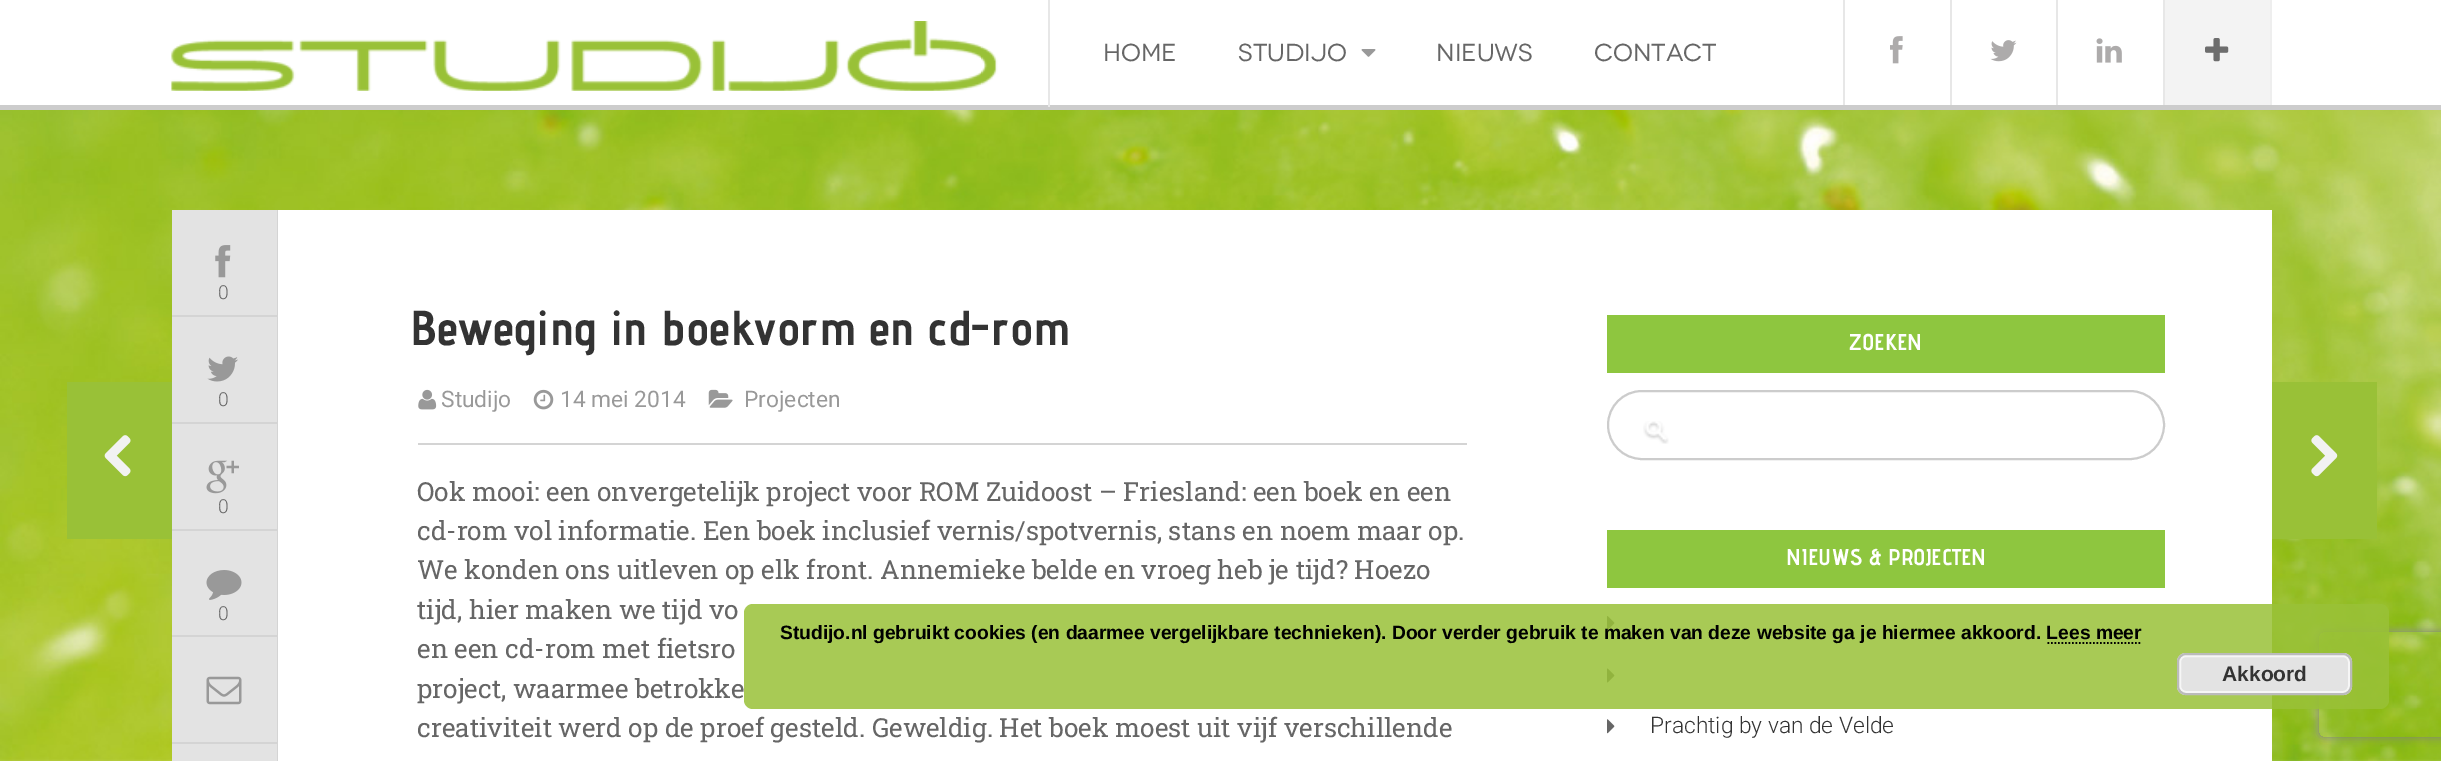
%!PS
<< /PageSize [2441 761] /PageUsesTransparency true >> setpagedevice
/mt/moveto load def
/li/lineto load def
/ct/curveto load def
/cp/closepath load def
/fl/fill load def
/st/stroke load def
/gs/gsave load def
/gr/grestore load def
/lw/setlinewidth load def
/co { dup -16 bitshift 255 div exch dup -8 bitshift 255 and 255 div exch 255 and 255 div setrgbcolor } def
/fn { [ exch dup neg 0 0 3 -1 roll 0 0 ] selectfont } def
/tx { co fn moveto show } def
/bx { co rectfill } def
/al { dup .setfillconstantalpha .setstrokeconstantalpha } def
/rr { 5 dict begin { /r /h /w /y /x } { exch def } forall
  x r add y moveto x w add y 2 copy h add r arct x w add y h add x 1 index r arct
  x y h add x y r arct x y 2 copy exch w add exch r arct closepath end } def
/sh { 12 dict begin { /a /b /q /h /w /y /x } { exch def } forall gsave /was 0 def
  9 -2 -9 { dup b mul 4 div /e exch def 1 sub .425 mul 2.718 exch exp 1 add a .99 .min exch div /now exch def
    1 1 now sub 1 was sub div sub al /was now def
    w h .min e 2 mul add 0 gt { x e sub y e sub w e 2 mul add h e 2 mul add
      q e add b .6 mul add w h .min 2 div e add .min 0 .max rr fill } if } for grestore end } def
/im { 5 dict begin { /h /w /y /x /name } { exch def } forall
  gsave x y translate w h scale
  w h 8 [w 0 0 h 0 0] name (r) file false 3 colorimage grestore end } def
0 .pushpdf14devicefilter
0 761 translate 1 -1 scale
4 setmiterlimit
0 0 2441 761 16#FFFFFF bx
(media/1.raw) 0 110 2441 651 im
0 105 2441 5 16#CCCCCC bx
(media/2.raw) 171 21 827 70 im
1048 0 2 107 16#E7E7E7 bx
(media/3.raw) 1361 49 15 8 im
1950 0 2 105 16#E7E7E7 bx
1843 0 2 105 16#E7E7E7 bx
(media/4.raw) 1890 36 13 28 im
2056 0 2 105 16#E7E7E7 bx
(media/5.raw) 1990 40 27 22 im
2163 0 2 105 16#E7E7E7 bx
(media/6.raw) 2096 38 26 25 im
2165 0 105 105 16#F3F3F3 bx
2270 0 2 105 16#EEEEEE bx
(media/7.raw) 2205 38 24 24 im
172 210 105 551 16#E3E3E3 bx
277 210 1 551 16#D4D4D4 bx
172 315 105 2 16#D4D4D4 bx
(media/8.raw) 215 245 16 33 im
172 422 105 2 16#D4D4D4 bx
(media/9.raw) 207 356 31 26 im
172 529 105 2 16#D4D4D4 bx
(media/10.raw) 206 460 33 34 im
172 635 105 2 16#D4D4D4 bx
(media/11.raw) 206 570 36 30 im
172 742 105 2 16#D4D4D4 bx
(media/12.raw) 206 676 36 29 im
278 210 1994 551 16#FFFFFF bx
418 443 1049 2 16#D4D4D4 bx
(media/13.raw) 418 389 19 21 im
(media/14.raw) 533 389 21 21 im
(media/15.raw) 708 389 25 19 im
1607 315 558 58 16#8EC63F bx
16#CCCCCC co
2 lw
1608 391 556 68 34 rr st
(media/16.raw) 1643 421 26 23 im
1607 530 558 58 16#8EC63F bx
(media/17.raw) 1607 616 8 14 im
(media/18.raw) 1607 668 8 15 im
(media/19.raw) 1607 719 8 15 im
67 382 105 157 16#99C137 bx
(media/20.raw) 104 435 27 42 im
2272 382 105 157 16#99C137 bx
(media/21.raw) 2311 435 27 42 im
gs
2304 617 mt 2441 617 li 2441 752 li 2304 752 li cp 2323 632 mt 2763 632 li 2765 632 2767 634 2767 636 ct 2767 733 li 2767 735 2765 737 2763 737 ct 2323 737 li 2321 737 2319 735 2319 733 ct 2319 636 li 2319 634 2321 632 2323 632 ct cp eoclip newpath
16#808080 co
2319 632 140 105 4 4.5 1 sh
gr
0.85 al
744 604 1645 105 9 rr fl
1 al
16#000000 co
1.8 lw
[1.75 1.75] 0 setdash
2047.5 643 mt 2142 643 li st
16#E3E3E3 co
2177 653 175 42 9 rr fl
16#F6F6F6 co
2 lw
[] 0 setdash
2180 656 169 36 6 rr st
16#BBBBBB co
2178 654 173 40 8 rr st
(HOME) 1103 61 /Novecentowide-Regular 24.5 16#666666 tx
(STUDIJO) 1238 61 /Novecentowide-Regular 24.5 16#666666 tx
(NIEUWS) 1436 61 /Novecentowide-Regular 24.5 16#666666 tx
(CONTACT) 1594 61 /Novecentowide-Regular 24.5 16#666666 tx
(0) 218 299 /Roboto-Light 19.25 16#666666 tx
(0) 218 406 /Roboto-Light 19.25 16#666666 tx
(0) 218 513 /Roboto-Light 19.25 16#666666 tx
(0) 218 620 /Roboto-Light 19.25 16#666666 tx
(Beweging in boekvorm en cd-rom) 410 345 /AdventPro-Bold 49 16#333333 tx
(Studijo) 441 407 /Roboto-Regular 22.75 16#999999 tx
(14 mei 2014) 560 407 /Roboto-Regular 22.75 16#999999 tx
(Projecten) 744 407 /Roboto-Regular 22.75 16#999999 tx
(Ook mooi: een onvergetelijk project voor ROM Zuidoost – Friesland: een boek en een) 417 501 /RobotoSlab-Regular 26.25 16#666666 tx
(cd-rom vol informatie. Een boek inclusief vernis/spotvernis, stans en noem maar op.) 417 540 /RobotoSlab-Regular 26.25 16#666666 tx
(We konden ons uitleven op elk front. Annemieke belde en vroeg heb je tijd? Hoezo) 417 579 /RobotoSlab-Regular 26.25 16#666666 tx
(tijd, hier maken we tijd vo) 417 619 /RobotoSlab-Regular 26.25 16#666666 tx
(en een cd-rom met fietsro) 417 658 /RobotoSlab-Regular 26.25 16#666666 tx
(project, waarmee betrokke) 417 698 /RobotoSlab-Regular 26.25 16#666666 tx
(creativiteit werd op de proef gesteld. Geweldig. Het boek moest uit vijf verschillende) 417 737 /RobotoSlab-Regular 26.25 16#666666 tx
(ZOEKEN) 1849 350 /AdventPro-Bold 22.75 16#FFFFFF tx
(NIEUWS & PROJECTEN) 1786 565 /AdventPro-Bold 22.75 16#FFFFFF tx
(Prachtig by van de Velde) 1650 733 /Roboto-Light 22.75 16#333333 tx
(Studijo.nl gebruikt cookies \(en daarmee vergelijkbare technieken\). Door verder gebruik te maken van deze website ga je hiermee akkoord. Lees meer) 780 639 /LiberationSans-Bold 19.25 16#000000 tx
(Akkoord) 2222 681 /LiberationSans-Bold 21 16#333333 tx
.poppdf14devicefilter showpage
